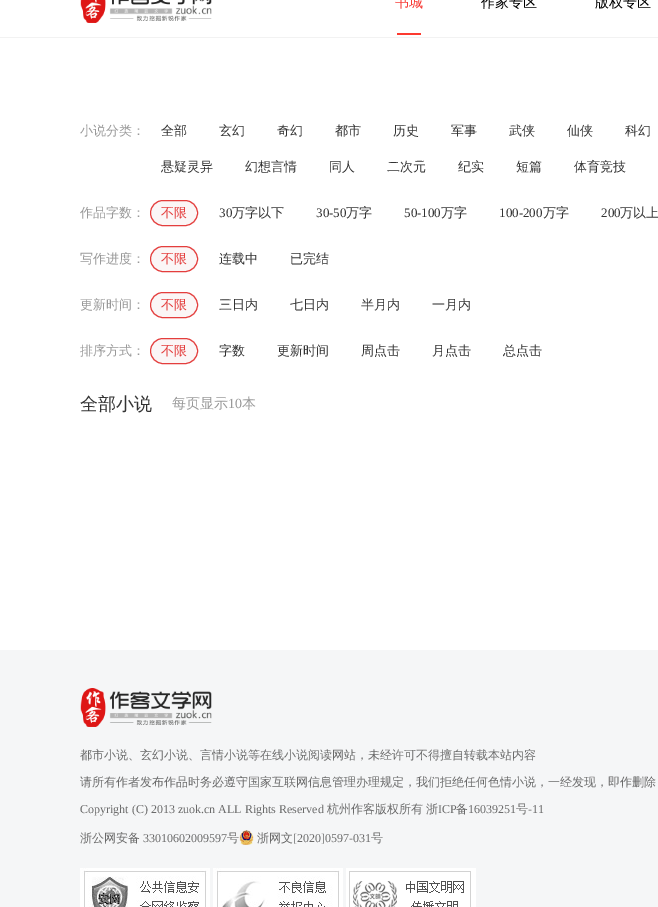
%!PS
<< /PageSize [658 907] >> setpagedevice
/fl/fill load def
/st/stroke load def
/gs/gsave load def
/gr/grestore load def
/co { dup -16 bitshift 255 div exch dup -8 bitshift 255 and 255 div exch 255 and 255 div setrgbcolor } def
/fn { [ exch dup neg 0 0 3 -1 roll 0 0 ] selectfont } def
/tx { co fn moveto show } def
/bx { co rectfill } def
/rr { 5 dict begin { /r /h /w /y /x } { exch def } forall
  x r add y moveto x w add y 2 copy h add r arct x w add y h add x 1 index r arct
  x y h add x y r arct x y 2 copy exch w add exch r arct closepath end } def
/im { 5 dict begin { /h /w /y /x /name } { exch def } forall
  gsave x y translate w h scale
  w h 8 [w 0 0 h 0 0] name (r) file false 3 colorimage grestore end } def
0 907 translate 1 -1 scale
4 setmiterlimit
0 0 658 907 16#FFFFFF bx
0 37 658 1 16#F2F2F2 bx
(media/1.raw) 80 0 132 23 im
397 33 24 2 16#FC3A30 bx
16#FBF6F6 co
150.5 200.5 47 25 12.5 rr gs fl gr
16#E43E3D co
st
16#FBF6F6 co
150.5 246.5 47 25 12.5 rr gs fl gr
16#E43E3D co
st
16#FBF6F6 co
150.5 292.5 47 25 12.5 rr gs fl gr
16#E43E3D co
st
16#FBF6F6 co
150.5 338.5 47 25 12.5 rr gs fl gr
16#E43E3D co
st
0 650 658 257 16#F5F6F7 bx
(media/2.raw) 80 688 132 39 im
(media/3.raw) 239 830 15 15 im
(media/4.raw) 80 868 130 39 im
(media/5.raw) 213 868 130 39 im
(media/6.raw) 346 868 130 39 im
(书城) 395 7 /WenQuanYiZenHei-Medium 14 16#F83B36 tx
(作家专区) 481 7 /WenQuanYiZenHei-Medium 14 16#000000 tx
(版权专区) 595 7 /WenQuanYiZenHei-Medium 14 16#000000 tx
(小说分类：) 80 135 /WenQuanYiZenHei-Medium 13 16#999999 tx
(全部) 161 135 /WenQuanYiZenHei-Medium 13 16#333333 tx
(玄幻) 219 135 /WenQuanYiZenHei-Medium 13 16#333333 tx
(奇幻) 277 135 /WenQuanYiZenHei-Medium 13 16#333333 tx
(都市) 335 135 /WenQuanYiZenHei-Medium 13 16#333333 tx
(历史) 393 135 /WenQuanYiZenHei-Medium 13 16#333333 tx
(军事) 451 135 /WenQuanYiZenHei-Medium 13 16#333333 tx
(武侠) 509 135 /WenQuanYiZenHei-Medium 13 16#333333 tx
(仙侠) 567 135 /WenQuanYiZenHei-Medium 13 16#333333 tx
(科幻) 625 135 /WenQuanYiZenHei-Medium 13 16#333333 tx
(悬疑灵异) 161 171 /WenQuanYiZenHei-Medium 13 16#333333 tx
(幻想言情) 245 171 /WenQuanYiZenHei-Medium 13 16#333333 tx
(同人) 329 171 /WenQuanYiZenHei-Medium 13 16#333333 tx
(二次元) 387 171 /WenQuanYiZenHei-Medium 13 16#333333 tx
(纪实) 458 171 /WenQuanYiZenHei-Medium 13 16#333333 tx
(短篇) 516 171 /WenQuanYiZenHei-Medium 13 16#333333 tx
(体育竞技) 574 171 /WenQuanYiZenHei-Medium 13 16#333333 tx
(作品字数：) 80 217 /WenQuanYiZenHei-Medium 13 16#999999 tx
(不限) 161 217 /WenQuanYiZenHei-Medium 13 16#E43E3D tx
(30) 219 217 /LiberationSerif-Regular 13 16#333333 tx
(万字以下) 232 217 /WenQuanYiZenHei-Medium 13 16#333333 tx
(30-50) 316 217 /LiberationSerif-Regular 13 16#333333 tx
(万字) 346 217 /WenQuanYiZenHei-Medium 13 16#333333 tx
(50-100) 404 217 /LiberationSerif-Regular 13 16#333333 tx
(万字) 441 217 /WenQuanYiZenHei-Medium 13 16#333333 tx
(100-200) 499 217 /LiberationSerif-Regular 13 16#333333 tx
(万字) 543 217 /WenQuanYiZenHei-Medium 13 16#333333 tx
(200) 601 217 /LiberationSerif-Regular 13 16#333333 tx
(万以上) 620 217 /WenQuanYiZenHei-Medium 13 16#333333 tx
(写作进度：) 80 263 /WenQuanYiZenHei-Medium 13 16#999999 tx
(不限) 161 263 /WenQuanYiZenHei-Medium 13 16#E43E3D tx
(连载中) 219 263 /WenQuanYiZenHei-Medium 13 16#333333 tx
(已完结) 290 263 /WenQuanYiZenHei-Medium 13 16#333333 tx
(更新时间：) 80 309 /WenQuanYiZenHei-Medium 13 16#999999 tx
(不限) 161 309 /WenQuanYiZenHei-Medium 13 16#E43E3D tx
(三日内) 219 309 /WenQuanYiZenHei-Medium 13 16#333333 tx
(七日内) 290 309 /WenQuanYiZenHei-Medium 13 16#333333 tx
(半月内) 361 309 /WenQuanYiZenHei-Medium 13 16#333333 tx
(一月内) 432 309 /WenQuanYiZenHei-Medium 13 16#333333 tx
(排序方式：) 80 355 /WenQuanYiZenHei-Medium 13 16#999999 tx
(不限) 161 355 /WenQuanYiZenHei-Medium 13 16#E43E3D tx
(字数) 219 355 /WenQuanYiZenHei-Medium 13 16#333333 tx
(更新时间) 277 355 /WenQuanYiZenHei-Medium 13 16#333333 tx
(周点击) 361 355 /WenQuanYiZenHei-Medium 13 16#333333 tx
(月点击) 432 355 /WenQuanYiZenHei-Medium 13 16#333333 tx
(总点击) 503 355 /WenQuanYiZenHei-Medium 13 16#333333 tx
(全部小说) 80 410 /WenQuanYiZenHei-Medium 18 16#333333 tx
(每页显示) 172 408 /WenQuanYiZenHei-Medium 14 16#999999 tx
(10) 228 408 /LiberationSerif-Regular 14 16#999999 tx
(本) 242 408 /WenQuanYiZenHei-Medium 14 16#999999 tx
(都市小说、玄幻小说、言情小说等在线小说阅读网站，未经许可不得擅自转载本站内容) 80 759 /WenQuanYiZenHei-Medium 12 16#6A6A6A tx
(请所有作者发布作品时务必遵守国家互联网信息管理办理规定，我们拒绝任何色情小说，一经发现，即作删除) 80 786 /WenQuanYiZenHei-Medium 12 16#6A6A6A tx
(Copyright \(C\) 2013 zuok.cn ALL Rights Reserved) 80 813 /LiberationSerif-Regular 12 16#6A6A6A tx
(杭州作客版权所有) 327 813 /WenQuanYiZenHei-Medium 12 16#6A6A6A tx
(浙) 426 813 /WenQuanYiZenHei-Medium 12 16#6A6A6A tx
(ICP) 438 813 /LiberationSerif-Regular 12 16#6A6A6A tx
(备) 456 813 /WenQuanYiZenHei-Medium 12 16#6A6A6A tx
(16039251) 468 813 /LiberationSerif-Regular 12 16#6A6A6A tx
(号) 516 813 /WenQuanYiZenHei-Medium 12 16#6A6A6A tx
(-11) 528 813 /LiberationSerif-Regular 12 16#6A6A6A tx
(浙公网安备) 80 842 /WenQuanYiZenHei-Medium 12 16#6A6A6A tx
(33010602009597) 143 842 /LiberationSerif-Regular 12 16#6A6A6A tx
(号) 227 842 /WenQuanYiZenHei-Medium 12 16#6A6A6A tx
(浙网文) 257 842 /WenQuanYiZenHei-Medium 12 16#6A6A6A tx
([2020]0597-031) 293 842 /LiberationSerif-Regular 12 16#6A6A6A tx
(号) 371 842 /WenQuanYiZenHei-Medium 12 16#6A6A6A tx
showpage
